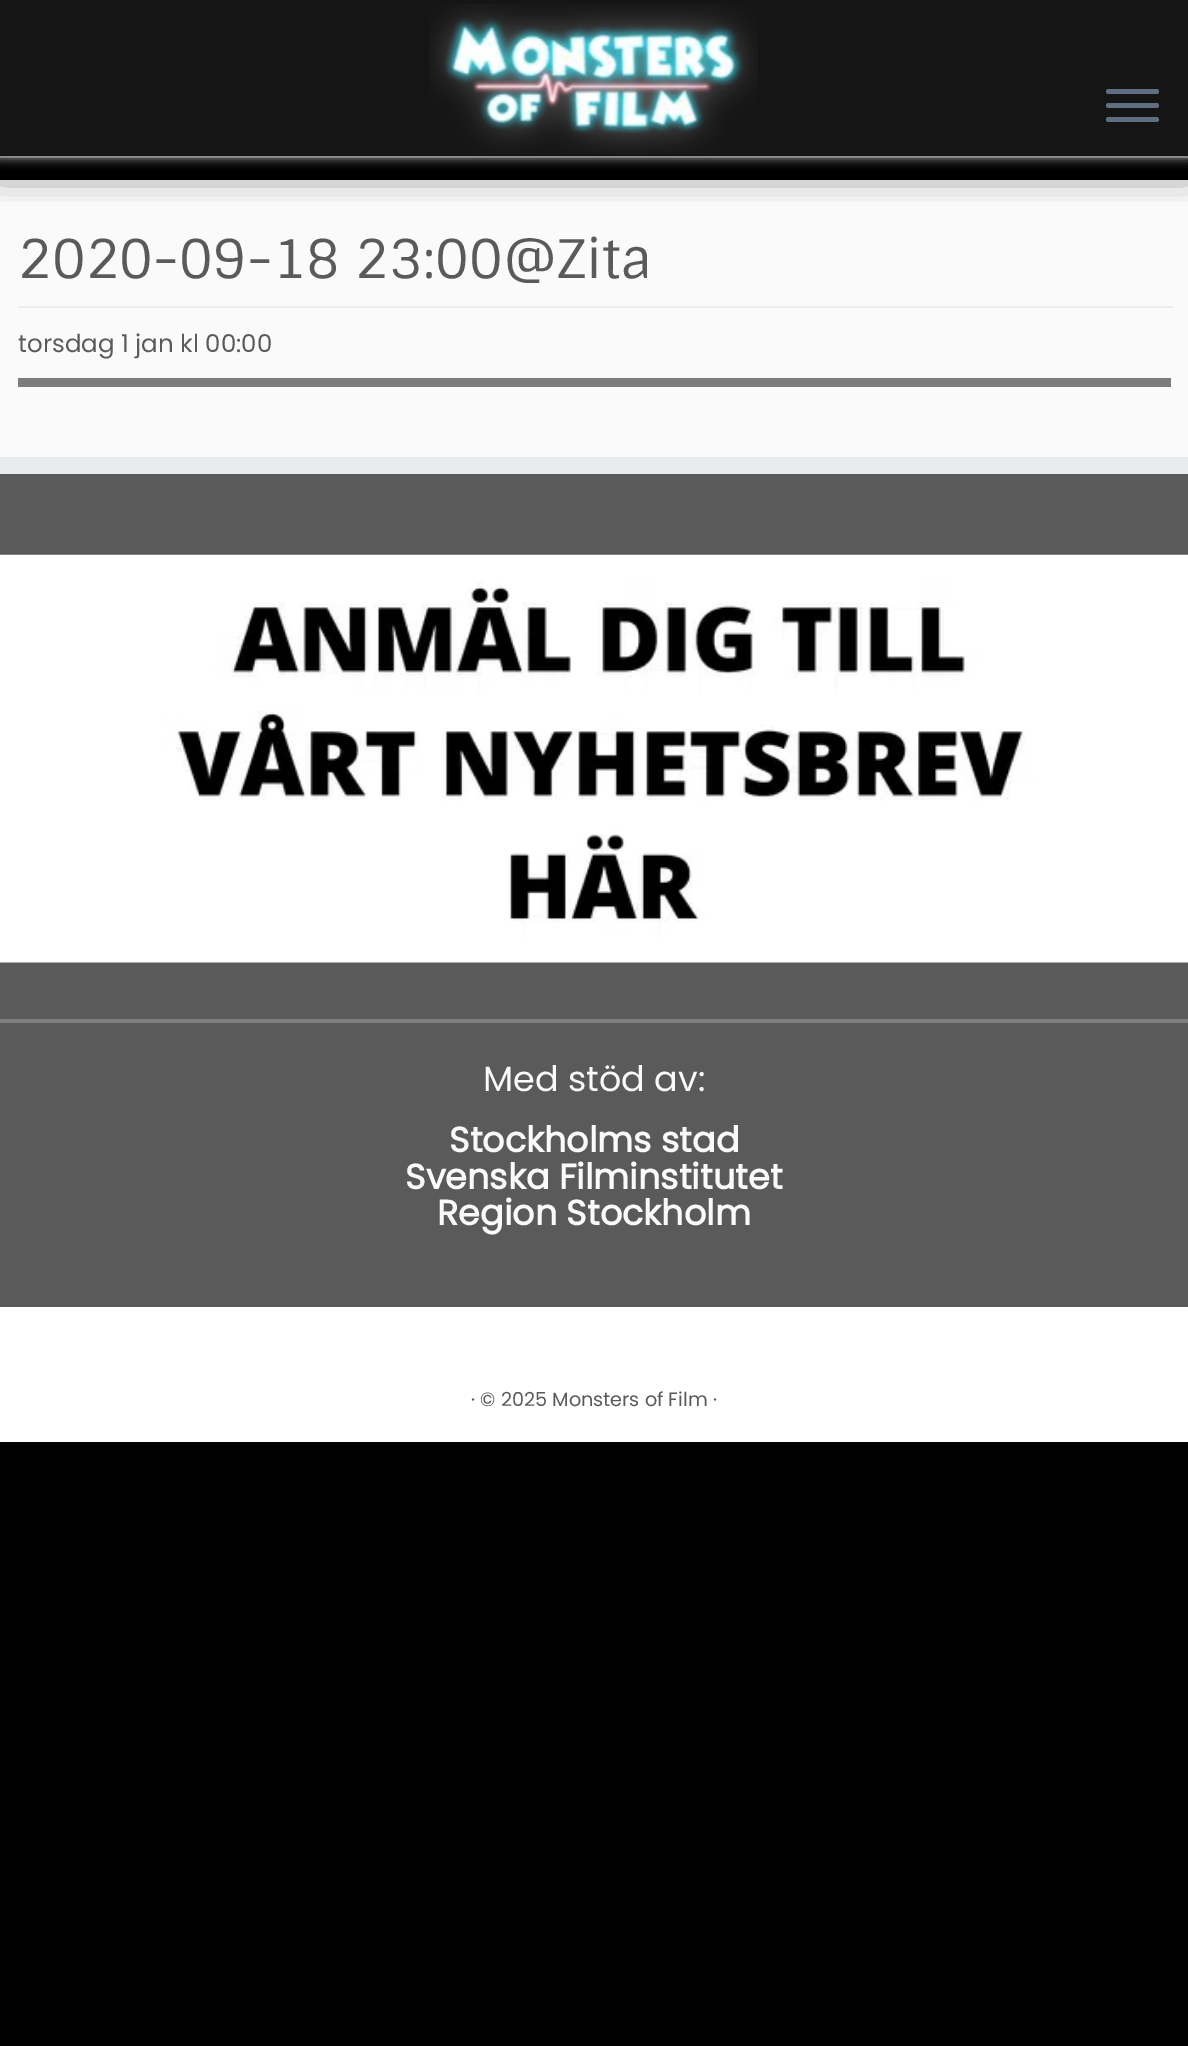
%!PS
<< /PageSize [1188 2046] /PageUsesTransparency true >> setpagedevice
/fl/fill load def
/gs/gsave load def
/gr/grestore load def
/co { dup -16 bitshift 255 div exch dup -8 bitshift 255 and 255 div exch 255 and 255 div setrgbcolor } def
/fn { [ exch dup neg 0 0 3 -1 roll 0 0 ] selectfont } def
/tx { co fn moveto show } def
/bx { co rectfill } def
/al { dup .setfillconstantalpha .setstrokeconstantalpha } def
/rr { 5 dict begin { /r /h /w /y /x } { exch def } forall
  x r add y moveto x w add y 2 copy h add r arct x w add y h add x 1 index r arct
  x y h add x y r arct x y 2 copy exch w add exch r arct closepath end } def
/sh { 12 dict begin { /a /b /q /h /w /y /x } { exch def } forall gsave /was 0 def
  9 -2 -9 { dup b mul 4 div /e exch def 1 sub .425 mul 2.718 exch exp 1 add a .99 .min exch div /now exch def
    1 1 now sub 1 was sub div sub al /was now def
    w h .min e 2 mul add 0 gt { x e sub y e sub w e 2 mul add h e 2 mul add
      q e add b .6 mul add w h .min 2 div e add .min 0 .max rr fill } if } for grestore end } def
/im { 5 dict begin { /h /w /y /x /name } { exch def } forall
  gsave x y translate w h scale
  w h 8 [w 0 0 h 0 0] name (r) file false 3 colorimage grestore end } def
0 .pushpdf14devicefilter
0 2046 translate 1 -1 scale
4 setmiterlimit
0 0 1188 2046 16#000000 bx
0 180 1188 277 16#FAFAFA bx
gs
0 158 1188 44 rectclip
16#000000 co
0 9 1188 157 0 17.5 1 sh
gr
gs
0 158 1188 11 rectclip
16#888888 co
0 2 1188 157 0 5 1 sh
gr
0.7 al
0 0 1188 156 16#1E1E1E bx
1 al
0 156 1188 2 16#888888 bx
(media/1.raw) 429 4 329 150 im
16#5F6F81 co
1106 89 53 5 2.5 rr fl
1106 103 53 5 2.5 rr fl
1106 117 53 5 2.5 rr fl
18 378 1153 9 16#7C7C7C bx
18 306 1155 2 16#EDEDED bx
0 474 1188 833 16#5A5A5A bx
0 457 1188 17 16#E9EAEE bx
(media/2.raw) 0 554 1188 409 im
0 1019 1188 4 16#808080 bx
0 1307 1188 135 16#FFFFFF bx
(2020-09-18 23:00@Zita) 18 278 /Sintony-Regular 53.25 16#5A5A5A tx
(torsdag 1 jan kl 00:00) 18 352 /Poppins-Regular 24.5 16#5A5A5A tx
(Med stöd av:) 483 1091 /Poppins-Regular 35 16#FAFAFA tx
(Stockholms stad) 449 1152 /Poppins-Bold 35 16#FAFAFA tx
(Svenska Filminstitutet) 405 1189 /Poppins-Bold 35 16#FAFAFA tx
(Region Stockholm) 437 1225 /Poppins-Bold 35 16#FAFAFA tx
(· © 2025 Monsters of Film ·) 471 1406 /Poppins-Regular 19.25 16#5A5A5A tx
.poppdf14devicefilter showpage
